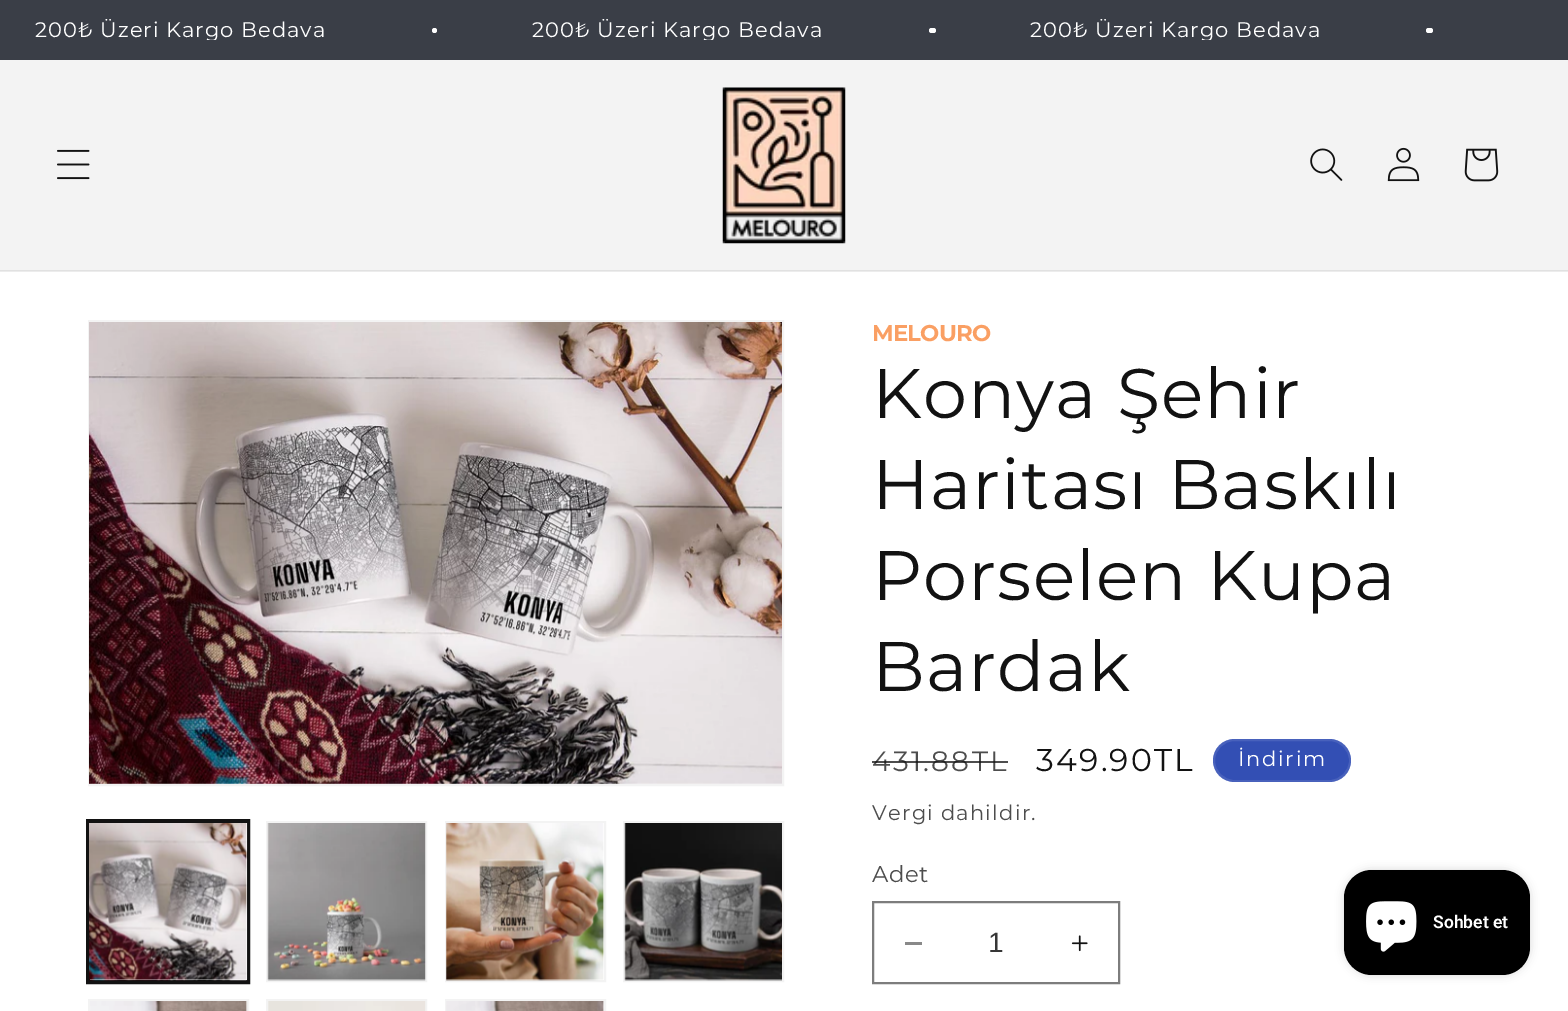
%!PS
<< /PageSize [1568 1011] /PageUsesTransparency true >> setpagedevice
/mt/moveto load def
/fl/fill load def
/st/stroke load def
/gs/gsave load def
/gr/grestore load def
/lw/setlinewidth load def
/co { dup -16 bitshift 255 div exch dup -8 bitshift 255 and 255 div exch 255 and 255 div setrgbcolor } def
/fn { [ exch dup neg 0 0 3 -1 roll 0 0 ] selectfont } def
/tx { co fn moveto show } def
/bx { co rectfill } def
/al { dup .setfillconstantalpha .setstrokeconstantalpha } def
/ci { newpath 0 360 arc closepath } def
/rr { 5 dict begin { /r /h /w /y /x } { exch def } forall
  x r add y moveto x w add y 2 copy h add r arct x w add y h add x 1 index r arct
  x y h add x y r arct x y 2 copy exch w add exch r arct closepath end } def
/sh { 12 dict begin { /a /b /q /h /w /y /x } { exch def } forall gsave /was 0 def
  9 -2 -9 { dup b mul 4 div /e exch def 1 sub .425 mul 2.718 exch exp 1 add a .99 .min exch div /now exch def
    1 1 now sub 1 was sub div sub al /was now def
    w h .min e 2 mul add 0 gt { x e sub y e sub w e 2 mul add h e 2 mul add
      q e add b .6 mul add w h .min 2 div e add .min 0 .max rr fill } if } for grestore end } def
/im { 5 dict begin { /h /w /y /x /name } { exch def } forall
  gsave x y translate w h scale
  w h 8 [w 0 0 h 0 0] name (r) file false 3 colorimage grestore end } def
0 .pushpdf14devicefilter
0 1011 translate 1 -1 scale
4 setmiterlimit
0 0 1568 1011 16#FFFFFF bx
0 271 1568 1 16#ECECEC bx
0 0 1568 60 16#3A3E47 bx
16#FFFFFF co
434.5 30.5 2.5 ci fl
929 28 7 5 2.5 rr fl
1426 28 7 5 2.5 rr fl
0 60 1568 210 16#F3F3F3 bx
0 270 1568 1 16#E1E1E1 bx
(media/1.raw) 57 149 33 31 im
(media/2.raw) 722 87 124 157 im
(media/3.raw) 1310 148 33 33 im
(media/4.raw) 1387 147 33 35 im
(media/5.raw) 1464 148 35 34 im
16#F3F3F3 co
2 lw
89 321 694 464 rectstroke
(media/6.raw) 89 322 693 462 im
16#121212 co
87 820 162 163 rectstroke
89 822 159 159 rectstroke
(media/7.raw) 89 823 159 158 im
16#F3F3F3 co
267 822 159 159 rectstroke
(media/8.raw) 267 823 159 158 im
446 822 159 159 rectstroke
(media/9.raw) 446 823 159 158 im
624 822 159 159 rectstroke
(media/10.raw) 624 823 158 158 im
89 1000 159 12 rectstroke
(media/11.raw) 90 1001 158 10 im
267 1000 159 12 rectstroke
(media/12.raw) 268 1001 158 10 im
446 1000 159 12 rectstroke
(media/13.raw) 446 1001 158 10 im
16#334FB4 co
1213 739 138 43 21.5 rr fl
0.1 al
16#FFFFFF co
1214 740 136 41 20.5 rr st
1 al
905 942 17 3 16#898989 bx
(media/14.raw) 1071 935 17 17 im
16#7D7D7D co
873 902 246 81 rectstroke
16#000000 co
1344 870 186 105 28 4.5 .15 sh
1344 870 186 105 28 rr fl
(media/15.raw) 1366 901 51 51 im
gs
35 19 1498 21 rectclip
/Montserrat-Regular 21 fn
16#FFFFFF co
35 37 mt 1.05 0 (200₺ Üzeri Kargo Bedava) ashow
532 37 mt 1.05 0 (200₺ Üzeri Kargo Bedava) ashow
1030 37 mt 1.05 0 (200₺ Üzeri Kargo Bedava) ashow
gr
/Montserrat-Bold 22.75 fn
16#FA9F63 co
872 341 mt -.75 0 (MELOURO) ashow
/Montserrat-Regular 70 fn
16#121212 co
872 418 mt 1.05 0 (Konya Şehir) ashow
872 509 mt 1.05 0 (Haritası Baskılı) ashow
872 600 mt 1.05 0 (Porselen Kupa) ashow
872 691 mt 1.05 0 (Bardak) ashow
/Montserrat-Regular 28 fn
16#4D4D4D co
872 771 mt 2.25 0 (431.88TL) ashow
0.75 al
872 761 136 2 16#121212 bx
/Montserrat-Regular 31.5 fn
1 al
1036 771 mt 2.25 0 (349.90TL) ashow
/Montserrat-Regular 21 fn
16#FFFFFF co
1238 766 mt 1.75 0 (İndirim) ashow
16#4D4D4D co
872 820 mt 1.25 0 (Vergi dahildir.) ashow
/Montserrat-Regular 22.75 fn
872 882 mt .5 0 (Adet) ashow
(1) 988 952 /LiberationSans-Regular 28 16#363636 tx
(Sohbet et) 1433 928 /Roboto-SemiBold 17.5 16#FFFFFF tx
.poppdf14devicefilter showpage
